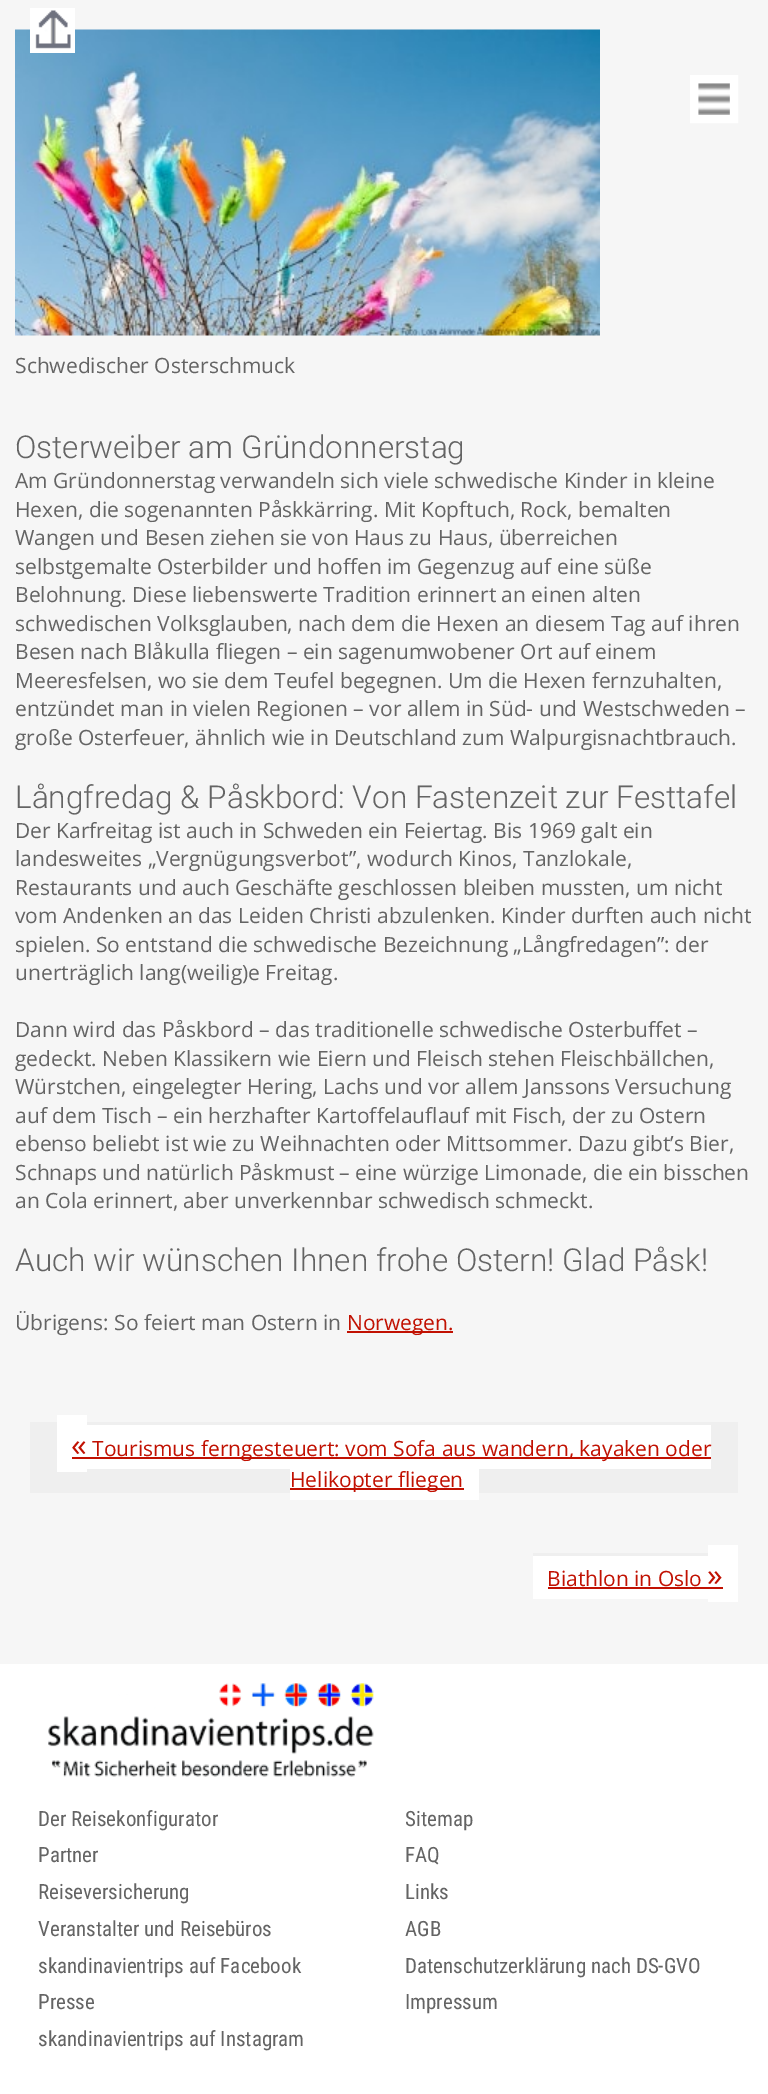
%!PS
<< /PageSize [768 2094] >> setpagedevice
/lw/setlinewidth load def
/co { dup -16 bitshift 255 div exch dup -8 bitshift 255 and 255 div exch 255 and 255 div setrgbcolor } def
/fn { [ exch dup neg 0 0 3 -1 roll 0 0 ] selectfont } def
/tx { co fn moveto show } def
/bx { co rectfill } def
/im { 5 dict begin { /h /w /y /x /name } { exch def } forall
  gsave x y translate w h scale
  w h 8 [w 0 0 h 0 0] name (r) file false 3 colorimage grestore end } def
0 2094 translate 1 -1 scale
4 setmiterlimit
0 0 768 2094 16#FFFFFF bx
0 0 768 1664 16#F6F6F6 bx
698 83 32 32 16#FFFFFF bx
(media/1.raw) 698 83 32 32 im
8 lw
694 79 40 40 rectstroke
(media/3.raw) 15 29 585 307 im
30 8 45 45 16#FFFFFF bx
(media/2.raw) 35 10 36 39 im
347 1331 106 2 16#C11102 bx
30 1422 708 71 16#EFEFEF bx
57 1415 30 57 16#FFFFFF bx
87 1425 624 44 16#FFFFFF bx
72 1457 639 2 16#C11102 bx
290 1469 189 31 16#FFFFFF bx
290 1488 174 2 16#C11102 bx
533 1553 175 3 16#EFEFEF bx
533 1556 175 43 16#FFFFFF bx
708 1545 30 57 16#FFFFFF bx
548 1587 175 2 16#C11102 bx
(media/4.raw) 48 1683 326 94 im
(Schwedischer Osterschmuck) 15 373 /OpenSans-Regular 21 16#646464 tx
(Osterweiber am Gründonnerstag) 15 458 /Roboto-Light 31.5 16#646464 tx
(Am Gründonnerstag verwandeln sich viele schwedische Kinder in kleine) 15 488 /OpenSans-Regular 21 16#646464 tx
(Hexen, die sogenannten Påskkärring. Mit Kopftuch, Rock, bemalten) 15 517 /OpenSans-Regular 21 16#646464 tx
(Wangen und Besen ziehen sie von Haus zu Haus, überreichen) 15 545 /OpenSans-Regular 21 16#646464 tx
(selbstgemalte Osterbilder und hoffen im Gegenzug auf eine süße) 15 574 /OpenSans-Regular 21 16#646464 tx
(Belohnung. Diese liebenswerte Tradition erinnert an einen alten) 15 602 /OpenSans-Regular 21 16#646464 tx
(schwedischen Volksglauben, nach dem die Hexen an diesem Tag auf ihren) 15 631 /OpenSans-Regular 21 16#646464 tx
(Besen nach Blåkulla fliegen – ein sagenumwobener Ort auf einem) 15 659 /OpenSans-Regular 21 16#646464 tx
(Meeresfelsen, wo sie dem Teufel begegnen. Um die Hexen fernzuhalten,) 15 688 /OpenSans-Regular 21 16#646464 tx
(entzündet man in vielen Regionen – vor allem in Süd- und Westschweden –) 15 716 /OpenSans-Regular 21 16#646464 tx
(große Osterfeuer, ähnlich wie in Deutschland zum Walpurgisnachtbrauch.) 15 745 /OpenSans-Regular 21 16#646464 tx
(Långfredag & Påskbord: Von Fastenzeit zur Festtafel) 15 808 /Roboto-Light 31.5 16#646464 tx
(Der Karfreitag ist auch in Schweden ein Feiertag. Bis 1969 galt ein) 15 838 /OpenSans-Regular 21 16#646464 tx
(landesweites „Vergnügungsverbot”, wodurch Kinos, Tanzlokale,) 15 866 /OpenSans-Regular 21 16#646464 tx
(Restaurants und auch Geschäfte geschlossen bleiben mussten, um nicht) 15 895 /OpenSans-Regular 21 16#646464 tx
(vom Andenken an das Leiden Christi abzulenken. Kinder durften auch nicht) 15 923 /OpenSans-Regular 21 16#646464 tx
(spielen. So entstand die schwedische Bezeichnung „Långfredagen”: der) 15 952 /OpenSans-Regular 21 16#646464 tx
(unerträglich lang\(weilig\)e Freitag.) 15 980 /OpenSans-Regular 21 16#646464 tx
(Dann wird das Påskbord – das traditionelle schwedische Osterbuffet –) 15 1037 /OpenSans-Regular 21 16#646464 tx
(gedeckt. Neben Klassikern wie Eiern und Fleisch stehen Fleischbällchen,) 15 1066 /OpenSans-Regular 21 16#646464 tx
(Würstchen, eingelegter Hering, Lachs und vor allem Janssons Versuchung) 15 1094 /OpenSans-Regular 21 16#646464 tx
(auf dem Tisch – ein herzhafter Kartoffelauflauf mit Fisch, der zu Ostern) 15 1123 /OpenSans-Regular 21 16#646464 tx
(ebenso beliebt ist wie zu Weihnachten oder Mittsommer. Dazu gibt’s Bier,) 15 1151 /OpenSans-Regular 21 16#646464 tx
(Schnaps und natürlich Påskmust – eine würzige Limonade, die ein bisschen) 15 1180 /OpenSans-Regular 21 16#646464 tx
(an Cola erinnert, aber unverkennbar schwedisch schmeckt.) 15 1208 /OpenSans-Regular 21 16#646464 tx
(Auch wir wünschen Ihnen frohe Ostern! Glad Påsk!) 15 1271 /Roboto-Light 31.5 16#646464 tx
(Übrigens: So feiert man Ostern in) 15 1330 /OpenSans-Regular 21 16#646464 tx
(Norwegen.) 347 1330 /OpenSans-Regular 21 16#C11102 tx
(«) 71 1456 /OpenSans-Regular 31.5 16#C11102 tx
(Tourismus ferngesteuert: vom Sofa aus wandern, kayaken oder) 92 1456 /OpenSans-Regular 21 16#C11102 tx
(Helikopter fliegen) 290 1487 /OpenSans-Regular 21 16#C11102 tx
(Biathlon in Oslo) 547 1586 /OpenSans-Regular 21 16#C11102 tx
(») 707 1586 /OpenSans-Regular 31.5 16#C11102 tx
(Der Reisekonfigurator) 38 1826 /RobotoCondensed-Regular 21 16#646464 tx
(Sitemap) 405 1826 /RobotoCondensed-Regular 21 16#646464 tx
(Partner) 38 1862 /RobotoCondensed-Regular 21 16#646464 tx
(FAQ) 405 1862 /RobotoCondensed-Regular 21 16#646464 tx
(Reiseversicherung) 38 1899 /RobotoCondensed-Regular 21 16#646464 tx
(Links) 405 1899 /RobotoCondensed-Regular 21 16#646464 tx
(Veranstalter und Reisebüros) 38 1936 /RobotoCondensed-Regular 21 16#646464 tx
(AGB) 405 1936 /RobotoCondensed-Regular 21 16#646464 tx
(skandinavientrips auf Facebook) 38 1973 /RobotoCondensed-Regular 21 16#646464 tx
(Datenschutzerklärung nach DS-GVO) 405 1973 /RobotoCondensed-Regular 21 16#646464 tx
(Presse) 38 2009 /RobotoCondensed-Regular 21 16#646464 tx
(Impressum) 405 2009 /RobotoCondensed-Regular 21 16#646464 tx
(skandinavientrips auf Instagram) 38 2046 /RobotoCondensed-Regular 21 16#646464 tx
showpage
